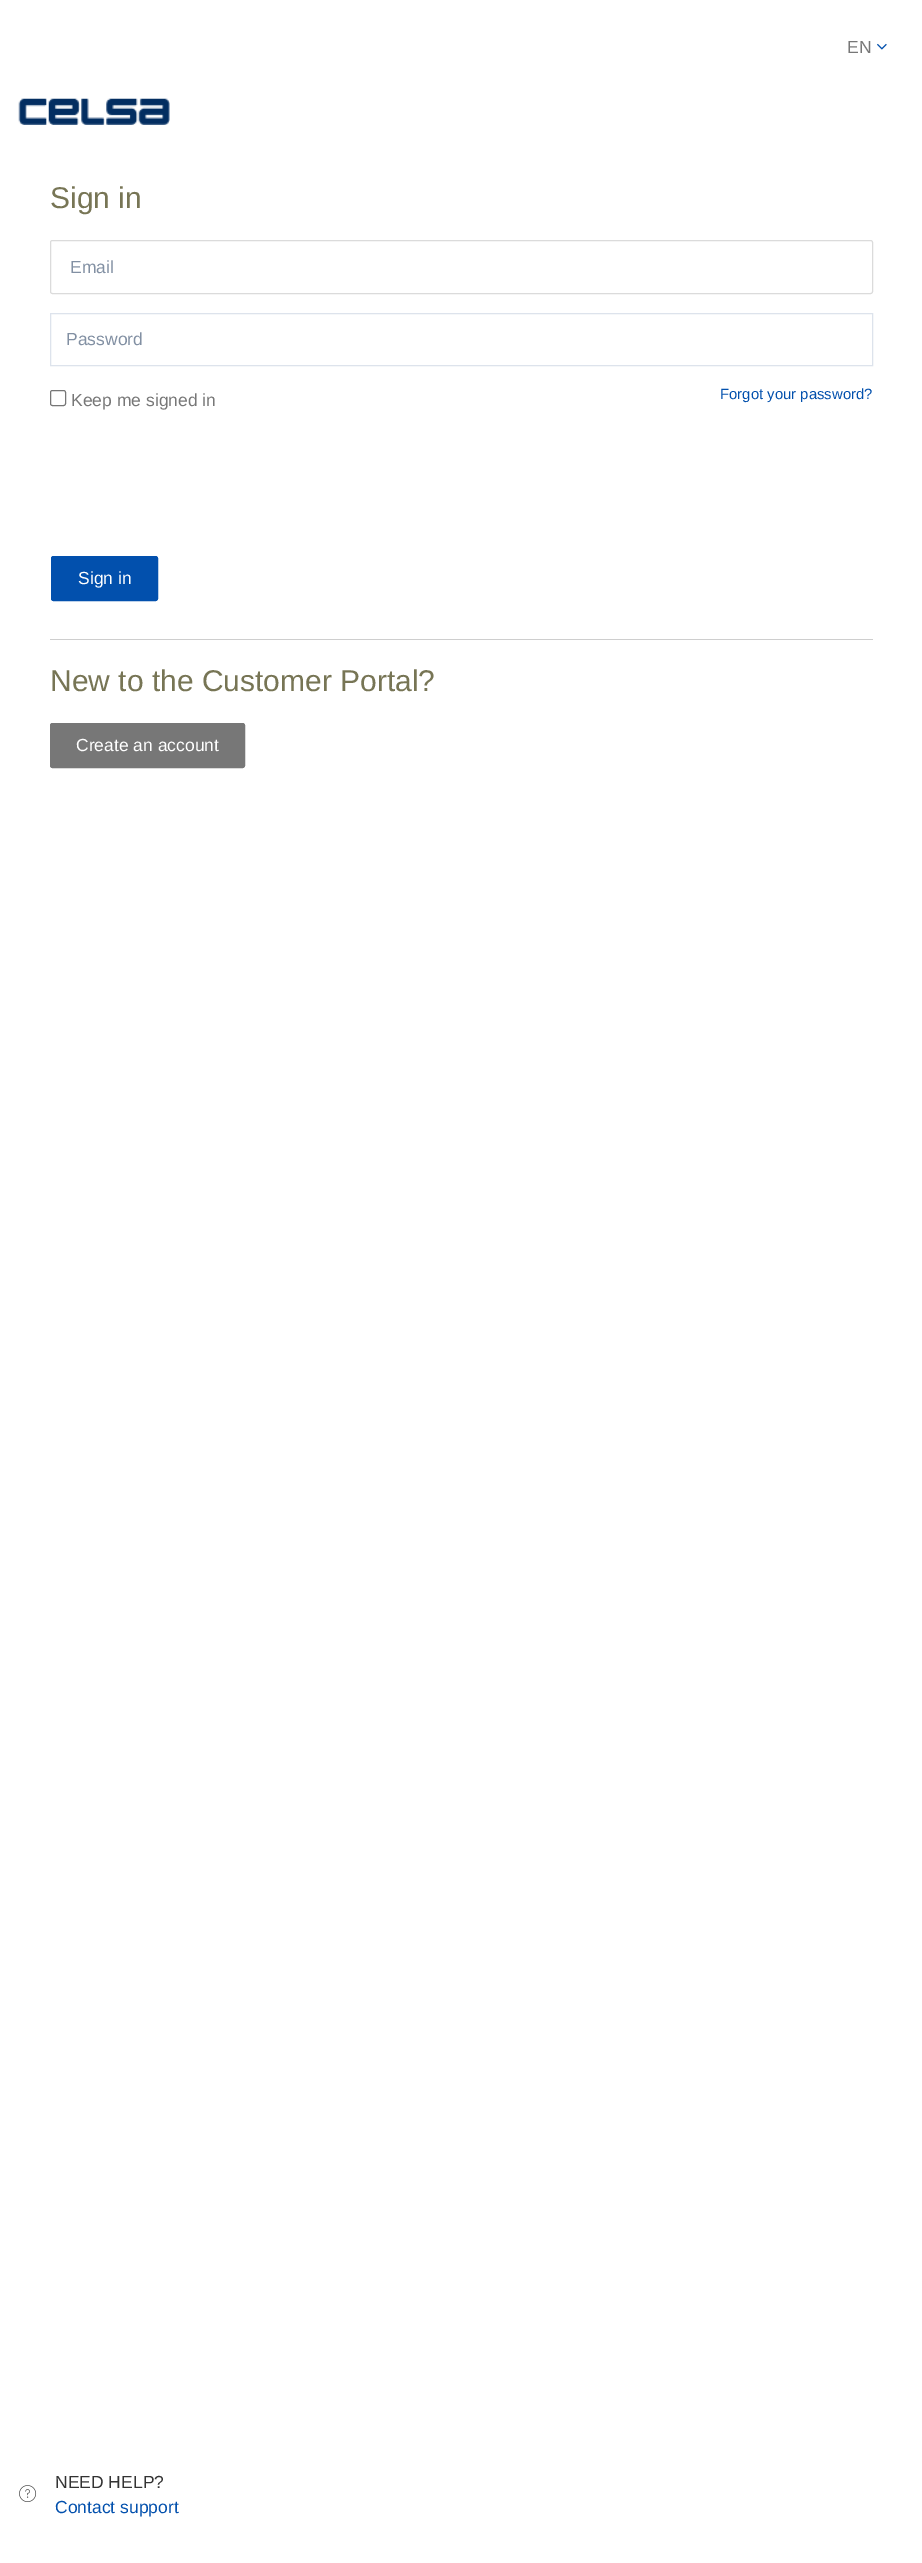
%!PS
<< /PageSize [922 2563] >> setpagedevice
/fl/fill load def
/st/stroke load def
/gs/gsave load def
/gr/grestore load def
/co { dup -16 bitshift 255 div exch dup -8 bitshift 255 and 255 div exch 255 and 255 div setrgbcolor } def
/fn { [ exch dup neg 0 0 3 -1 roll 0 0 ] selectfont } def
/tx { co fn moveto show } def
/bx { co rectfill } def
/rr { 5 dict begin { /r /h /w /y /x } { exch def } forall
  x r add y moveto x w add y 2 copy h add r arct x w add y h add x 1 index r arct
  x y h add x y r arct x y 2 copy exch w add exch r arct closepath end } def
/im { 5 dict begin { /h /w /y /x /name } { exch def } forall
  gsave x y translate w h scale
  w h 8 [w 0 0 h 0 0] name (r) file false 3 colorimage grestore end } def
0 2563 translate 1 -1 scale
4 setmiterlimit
0 0 922 2563 16#FFFFFF bx
(media/1.raw) 877 43 10 7 im
(media/2.raw) 18 98 152 27 im
16#DBDBDB co
50.5 240.5 822 53 2 rr st
16#DDE3EC co
50.5 313.5 822 52 rectstroke
16#767676 co
50.5 390.5 15 15 2 rr st
16#0250AD co
51.5 556.5 106 44 2 rr gs fl gr
st
50 639 823 1 16#CECECE bx
16#777777 co
50.5 723.5 194 44 2 rr gs fl gr
st
(media/3.raw) 19 2485 18 17 im
(EN) 847 53 /LiberationSans-Regular 17.5 16#777777 tx
(Sign in) 50 208 /LiberationSans-Regular 30 16#777555 tx
(Email) 70 273 /LiberationSans-Regular 17.5 16#8290A3 tx
(Password) 66 345 /LiberationSans-Regular 17.5 16#8290A3 tx
(Keep me signed in) 71 406 /LiberationSans-Regular 17.5 16#777777 tx
(Forgot your password?) 720 399 /LiberationSans-Regular 14.9 16#0250AD tx
(Sign in) 78 584 /LiberationSans-Regular 17.5 16#FFFFFF tx
(New to the Customer Portal?) 50 691 /LiberationSans-Regular 30 16#777555 tx
(Create an account) 76 751 /LiberationSans-Regular 17.5 16#FFFFFF tx
(NEED HELP?) 55 2488 /LiberationSans-Regular 17.5 16#333333 tx
(Contact support) 55 2513 /LiberationSans-Regular 17.5 16#0250AD tx
showpage
